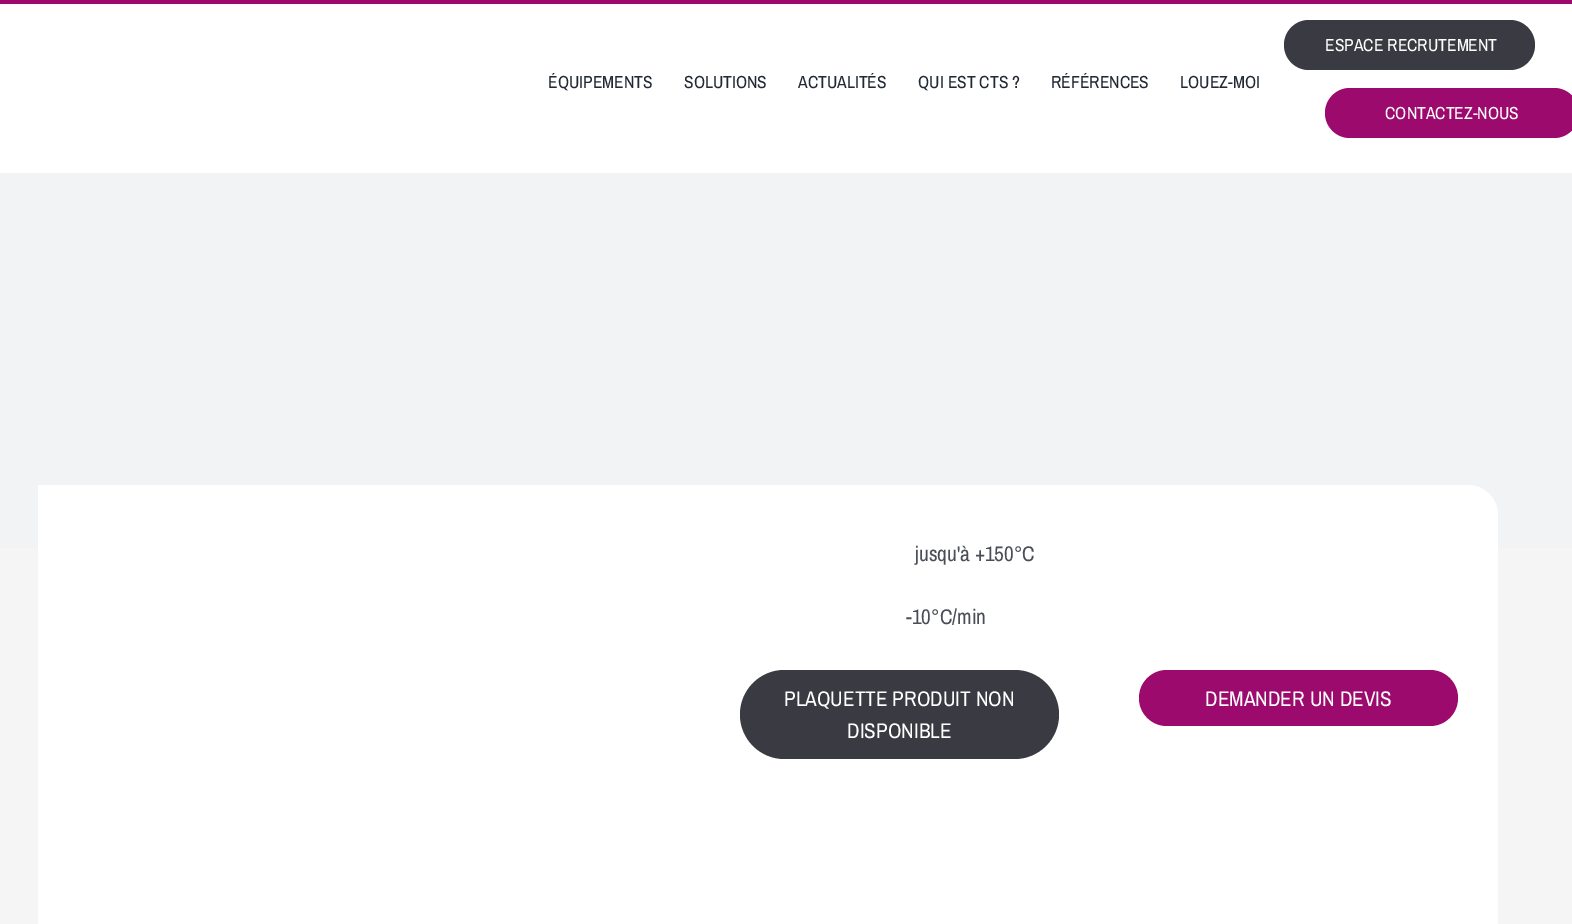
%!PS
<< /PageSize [1572 924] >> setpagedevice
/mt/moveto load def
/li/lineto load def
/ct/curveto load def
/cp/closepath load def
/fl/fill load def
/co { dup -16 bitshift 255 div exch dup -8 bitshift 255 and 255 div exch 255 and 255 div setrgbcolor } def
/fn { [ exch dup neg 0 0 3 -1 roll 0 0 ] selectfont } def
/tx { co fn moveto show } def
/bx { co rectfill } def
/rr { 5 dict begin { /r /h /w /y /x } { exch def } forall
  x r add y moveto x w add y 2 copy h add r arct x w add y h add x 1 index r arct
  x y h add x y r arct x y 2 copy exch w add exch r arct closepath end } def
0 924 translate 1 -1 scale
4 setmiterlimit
0 0 1572 924 16#FFFFFF bx
0 0 1572 4 16#9D0A6D bx
16#3A3A42 co
1284 20 251 50 25 rr fl
16#9D0A6D co
1325 88 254 50 25 rr fl
0 173 1572 375 16#F2F3F5 bx
0 548 1572 376 16#F5F5F5 bx
38 485 625 439 16#FFFFFF bx
663 485 mt 1468 485 li 1484.5 485 1498 498.5 1498 515 ct 1498 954 li 663 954 li cp fl
16#3A3A42 co
740 670 319 89 44.5 rr fl
16#9D0A6D co
1139 670 319 56 28 rr fl
(ESPACE RECRUTEMENT) 1325 51 /ArchivoNarrow-Regular 17.5 16#FFFFFF tx
(ÉQUIPEMENTS) 548 88 /ArchivoNarrow-Regular 17.5 16#212934 tx
(SOLUTIONS) 684 88 /ArchivoNarrow-Regular 17.5 16#212934 tx
(ACTUALITÉS) 798 88 /ArchivoNarrow-Regular 17.5 16#212934 tx
(QUI EST CTS ?) 918 88 /ArchivoNarrow-Regular 17.5 16#212934 tx
(RÉFÉRENCES) 1051 88 /ArchivoNarrow-Regular 17.5 16#212934 tx
(LOUEZ-MOI) 1180 88 /ArchivoNarrow-Regular 17.5 16#212934 tx
(CONTACTEZ-NOUS) 1385 119 /ArchivoNarrow-Regular 17.5 16#FFFFFF tx
(jusqu'à +150°C) 915 561 /ArchivoNarrow-Regular 21.25 16#4A4E57 tx
(-10°C/min) 906 624 /ArchivoNarrow-Regular 21.25 16#4A4E57 tx
(PLAQUETTE PRODUIT NON) 784 706 /ArchivoNarrow-Regular 21.25 16#FFFFFF tx
(DISPONIBLE) 847 738 /ArchivoNarrow-Regular 21.25 16#FFFFFF tx
(DEMANDER UN DEVIS) 1205 706 /ArchivoNarrow-Regular 21.25 16#FFFFFF tx
showpage
